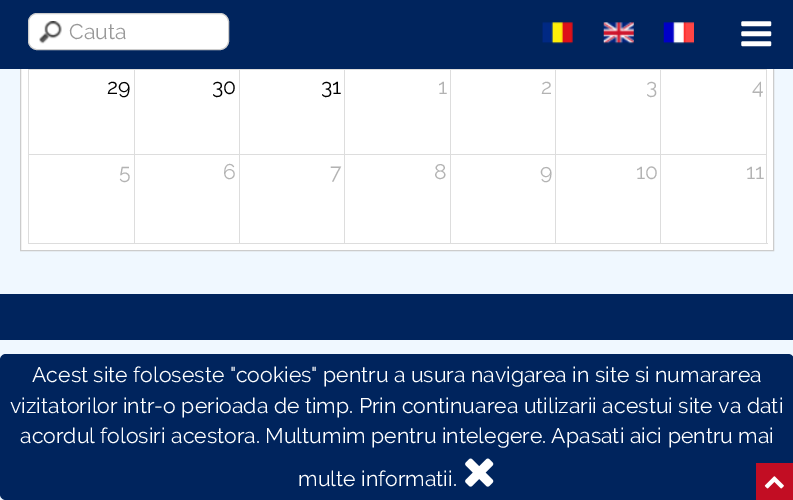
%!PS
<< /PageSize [793 500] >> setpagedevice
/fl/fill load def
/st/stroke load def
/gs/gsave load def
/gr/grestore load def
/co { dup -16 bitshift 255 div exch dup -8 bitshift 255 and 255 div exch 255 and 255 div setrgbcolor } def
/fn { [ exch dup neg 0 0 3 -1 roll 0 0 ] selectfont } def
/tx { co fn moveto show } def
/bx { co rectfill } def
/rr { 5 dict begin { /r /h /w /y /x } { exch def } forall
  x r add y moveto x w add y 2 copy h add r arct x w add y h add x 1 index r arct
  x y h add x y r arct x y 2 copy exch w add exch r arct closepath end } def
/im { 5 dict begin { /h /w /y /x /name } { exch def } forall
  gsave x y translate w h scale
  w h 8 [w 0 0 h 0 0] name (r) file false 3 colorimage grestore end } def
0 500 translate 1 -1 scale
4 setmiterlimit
0 0 793 500 16#F0F8FF bx
21 69 752 181 16#FFFFFF bx
16#CCCCCC co
20.5 -.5 753 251 rectstroke
0 0 793 69 16#00245D bx
16#FFFFFF co
28.5 13.5 200 36 8.5 rr gs fl gr
16#CCCCCC co
st
(media/1.raw) 39 21 23 23 im
(media/2.raw) 542 22 31 22 im
(media/3.raw) 603 22 31 22 im
(media/4.raw) 663 22 31 22 im
(media/5.raw) 741 21 31 26 im
766 69 1 175 16#DDDDDD bx
28 243 740 1 16#DDDDDD bx
28 69 1 175 16#DDDDDD bx
29 69 737 1 16#DDDDDD bx
660 154 106 1 16#DDDDDD bx
660 69 1 86 16#DDDDDD bx
555 154 106 1 16#DDDDDD bx
555 69 1 86 16#DDDDDD bx
450 154 106 1 16#DDDDDD bx
450 69 1 86 16#DDDDDD bx
344 154 107 1 16#DDDDDD bx
344 69 1 86 16#DDDDDD bx
239 154 106 1 16#DDDDDD bx
239 69 1 86 16#DDDDDD bx
134 154 106 1 16#DDDDDD bx
134 69 1 86 16#DDDDDD bx
29 154 106 1 16#DDDDDD bx
134 154 1 89 16#DDDDDD bx
239 154 1 89 16#DDDDDD bx
344 154 1 89 16#DDDDDD bx
450 154 1 89 16#DDDDDD bx
555 154 1 89 16#DDDDDD bx
660 154 1 89 16#DDDDDD bx
0 294 793 46 16#00245D bx
0 354 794 146 6 rr fl
(media/6.raw) 465 458 29 29 im
756 463 37 37 16#C20D23 bx
(media/7.raw) 764 476 20 13 im
(Cauta) 69 39 /Raleway-Regular 21.25 16#999999 tx
(29) 107 94 /Raleway-Regular 21.25 16#000000 tx
(30) 212 94 /Raleway-Regular 21.25 16#000000 tx
(31) 321 94 /Raleway-Regular 21.25 16#000000 tx
(1) 438 94 /Raleway-Regular 21.25 16#B3B3B3 tx
(2) 541 94 /Raleway-Regular 21.25 16#B3B3B3 tx
(3) 646 94 /Raleway-Regular 21.25 16#B3B3B3 tx
(4) 752 94 /Raleway-Regular 21.25 16#B3B3B3 tx
(5) 119 179 /Raleway-Regular 21.25 16#B3B3B3 tx
(6) 223 179 /Raleway-Regular 21.25 16#B3B3B3 tx
(7) 330 179 /Raleway-Regular 21.25 16#B3B3B3 tx
(8) 434 179 /Raleway-Regular 21.25 16#B3B3B3 tx
(9) 540 179 /Raleway-Regular 21.25 16#B3B3B3 tx
(10) 636 179 /Raleway-Regular 21.25 16#B3B3B3 tx
(11) 746 179 /Raleway-Regular 21.25 16#B3B3B3 tx
(Acest site foloseste "cookies" pentru a usura navigarea in site si numararea) 32 382 /Raleway-Regular 21.25 16#FFFFFF tx
(vizitatorilor intr-o perioada de timp. Prin continuarea utilizarii acestui site va dati) 10 413 /Raleway-Regular 21.25 16#FFFFFF tx
(acordul folosiri acestora. Multumim pentru intelegere. Apasati aici pentru mai) 20 443 /Raleway-Regular 21.25 16#FFFFFF tx
(multe informatii.) 298 486 /Raleway-Regular 21.25 16#FFFFFF tx
showpage
